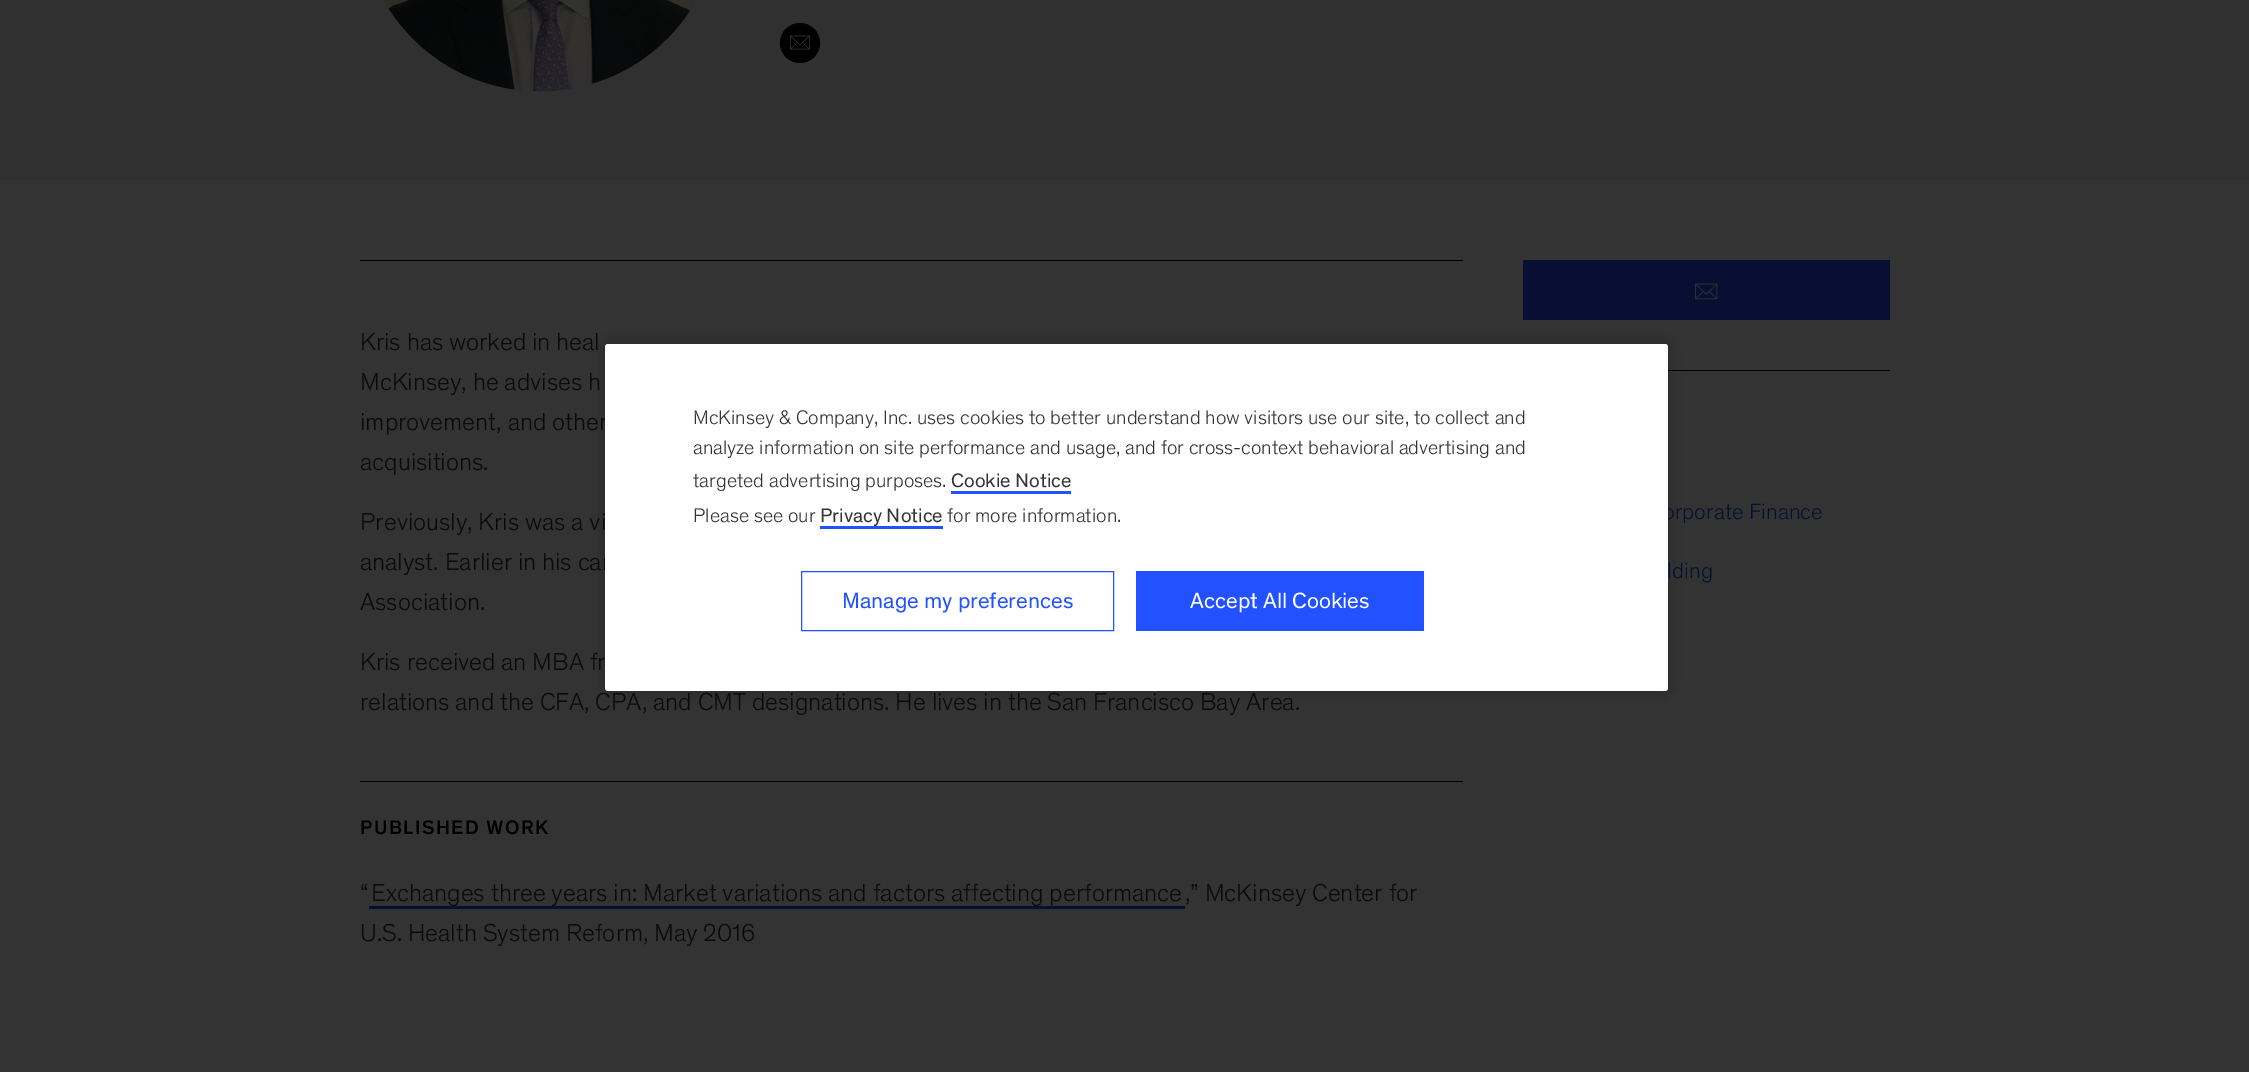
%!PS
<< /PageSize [2249 1072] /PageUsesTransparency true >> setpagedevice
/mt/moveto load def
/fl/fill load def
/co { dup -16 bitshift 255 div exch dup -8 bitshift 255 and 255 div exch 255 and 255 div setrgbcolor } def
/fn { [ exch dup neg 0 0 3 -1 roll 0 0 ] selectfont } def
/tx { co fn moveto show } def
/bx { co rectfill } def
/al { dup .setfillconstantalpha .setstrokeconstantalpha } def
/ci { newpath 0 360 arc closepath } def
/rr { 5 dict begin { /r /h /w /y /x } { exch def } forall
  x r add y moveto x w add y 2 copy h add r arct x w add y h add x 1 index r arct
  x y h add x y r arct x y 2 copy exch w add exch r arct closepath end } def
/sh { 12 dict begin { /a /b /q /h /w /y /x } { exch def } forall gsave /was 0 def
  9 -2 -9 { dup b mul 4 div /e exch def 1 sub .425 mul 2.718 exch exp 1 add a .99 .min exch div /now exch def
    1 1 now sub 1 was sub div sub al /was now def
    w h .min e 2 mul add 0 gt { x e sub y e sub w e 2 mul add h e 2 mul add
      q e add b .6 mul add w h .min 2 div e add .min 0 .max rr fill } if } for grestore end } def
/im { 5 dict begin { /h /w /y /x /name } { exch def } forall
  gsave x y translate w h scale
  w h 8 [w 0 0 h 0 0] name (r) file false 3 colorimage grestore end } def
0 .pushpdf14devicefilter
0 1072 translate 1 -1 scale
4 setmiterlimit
0 0 2249 1072 16#333333 bx
0 0 2249 180 16#303030 bx
(media/1.raw) 383 0 314 92 im
16#000000 co
800 43 20 ci fl
(media/2.raw) 790 35 20 15 im
360 260 1103 1 16#000000 bx
1523 260 367 60 16#071033 bx
(media/3.raw) 1695 283 23 17 im
1668 370 222 1 16#000000 bx
360 781 1103 1 16#000000 bx
369 906 816 3 16#071033 bx
16#000000 co
605 344 1063 347 3 11 .2 sh
(Kris has worked in heal) 360 350 /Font-Light 25 16#0A0A0A tx
(McKinsey, he advises h) 360 390 /Font-Light 25 16#0A0A0A tx
(improvement, and other) 360 430 /Font-Light 25 16#0A0A0A tx
(acquisitions.) 360 470 /Font-Light 25 16#0A0A0A tx
(Previously, Kris was a vi) 360 530 /Font-Light 25 16#0A0A0A tx
(analyst. Earlier in his car) 360 570 /Font-Light 25 16#0A0A0A tx
(Association.) 360 610 /Font-Light 25 16#0A0A0A tx
(Kris received an MBA fr) 360 670 /Font-Light 25 16#0A0A0A tx
(relations and the CFA, CPA, and CMT designations. He lives in the San Francisco Bay Area.) 360 710 /Font-Light 25 16#0A0A0A tx
(orporate Finance) 1663 519 /Font-Light 22.5 16#071033 tx
(lding) 1667 578 /Font-Light 22.5 16#071033 tx
/Font-Medium 20 fn
16#000000 co
360 834 mt 1.5 0 (PUBLISHED WORK) ashow
(“) 360 901 /Font-Light 25 16#0A0A0A tx
(Exchanges three years in: Market variations and factors affecting performance) 371 901 /Font-Light 25 16#0A0A0A tx
(,” McKinsey Center for) 1185 901 /Font-Light 25 16#0A0A0A tx
(U.S. Health System Reform, May 2016) 360 941 /Font-Light 25 16#0A0A0A tx
16#FFFFFF co
605 344 1063 347 3 rr fl
(McKinsey & Company, Inc. uses cookies to better understand how visitors use our site, to collect and) 693 424 /Font-Light 20 16#333333 tx
(analyze information on site performance and usage, and for cross-context behavioral advertising and) 693 454 /Font-Light 20 16#333333 tx
(targeted advertising purposes.) 693 487 /Font-Light 20 16#333333 tx
(Cookie Notice) 951 487 /Font-Regular 20 16#333333 tx
951 491 120 3 16#2251FF bx
(Please see our) 693 522 /Font-Light 20 16#333333 tx
(Privacy Notice) 820 522 /Font-Regular 20 16#333333 tx
820 526 123 3 16#2251FF bx
(for more information.) 947 522 /Font-Light 20 16#333333 tx
16#2251FF co
801.5 571.5 312 59 rectstroke
(Manage my preferences) 842 608 /Font-Regular 22.5 16#2251FF tx
1136 571 288 60 16#2251FF bx
(Accept All Cookies) 1190 608 /Font-Regular 22.5 16#FFFFFF tx
.poppdf14devicefilter showpage
